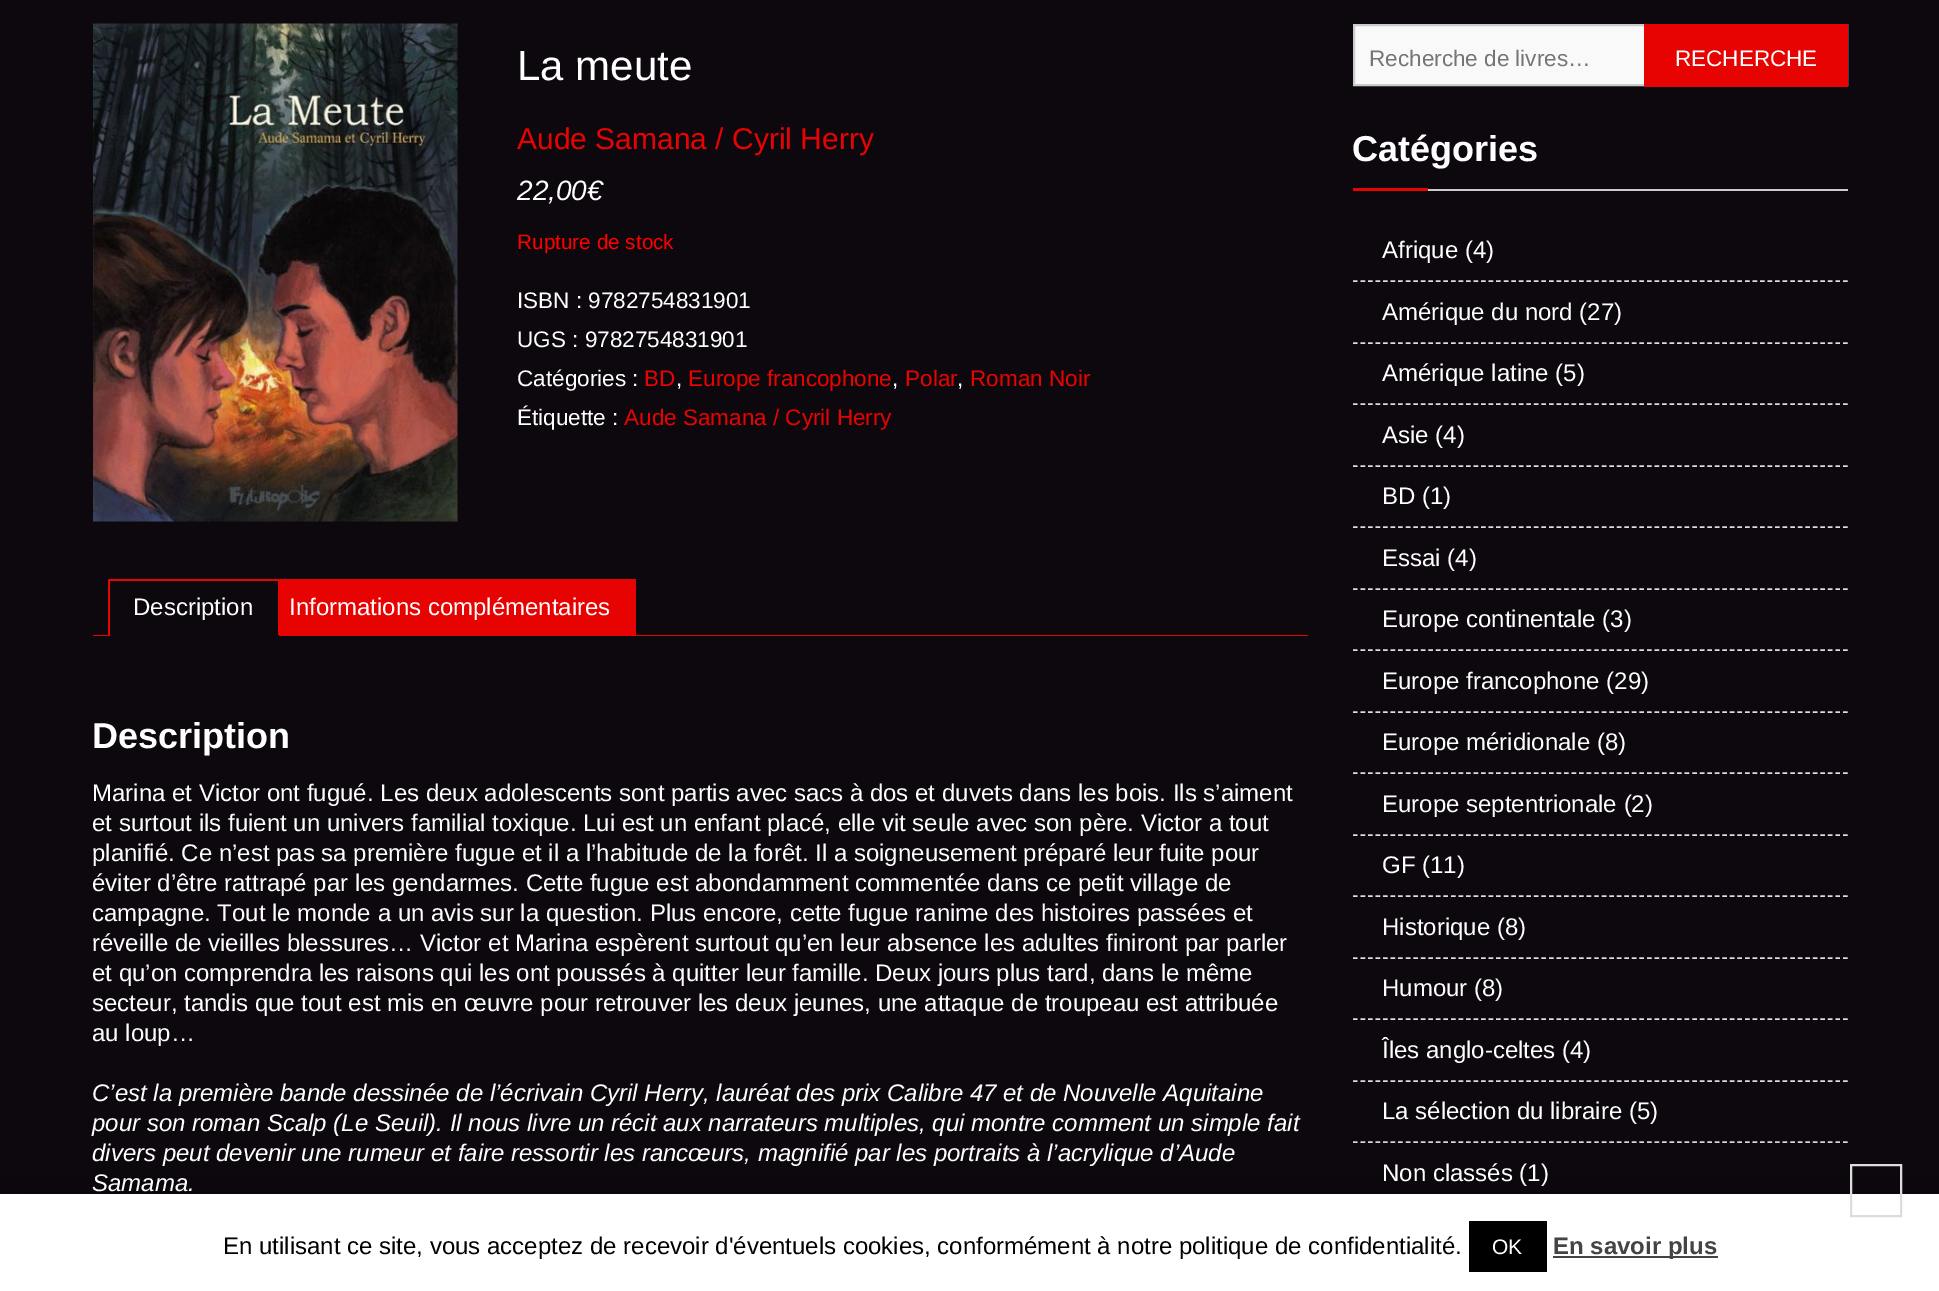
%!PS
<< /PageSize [1939 1291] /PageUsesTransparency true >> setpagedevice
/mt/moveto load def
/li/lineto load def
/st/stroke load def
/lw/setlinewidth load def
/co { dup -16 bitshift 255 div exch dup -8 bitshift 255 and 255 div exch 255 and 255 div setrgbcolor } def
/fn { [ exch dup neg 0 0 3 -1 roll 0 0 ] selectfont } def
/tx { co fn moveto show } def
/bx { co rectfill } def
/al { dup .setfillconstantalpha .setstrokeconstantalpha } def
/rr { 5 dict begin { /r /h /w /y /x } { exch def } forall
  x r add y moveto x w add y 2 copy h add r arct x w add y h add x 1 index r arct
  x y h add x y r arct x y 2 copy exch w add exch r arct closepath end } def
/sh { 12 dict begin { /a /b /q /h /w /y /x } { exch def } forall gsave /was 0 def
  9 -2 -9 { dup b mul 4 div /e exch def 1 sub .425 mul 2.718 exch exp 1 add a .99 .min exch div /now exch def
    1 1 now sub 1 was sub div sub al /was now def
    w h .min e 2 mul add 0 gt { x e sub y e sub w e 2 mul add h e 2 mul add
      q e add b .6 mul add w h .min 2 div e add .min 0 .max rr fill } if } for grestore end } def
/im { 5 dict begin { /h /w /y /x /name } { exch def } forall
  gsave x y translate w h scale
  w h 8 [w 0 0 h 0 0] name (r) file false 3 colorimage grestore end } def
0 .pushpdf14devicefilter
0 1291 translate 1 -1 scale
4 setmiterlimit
0 0 1939 1291 16#0D080E bx
(media/1.raw) 93 23 365 499 im
108 579 171 2 16#E70302 bx
93 635 1215 1 16#E70302 bx
278 579 2 57 16#E70302 bx
108 635 171 1 16#0D080E bx
108 579 2 57 16#E70302 bx
280 579 356 56 16#E70302 bx
1355 26 289 58 16#F9F9F9 bx
16#CCCCCC co
2 lw
1354 25 493 60 rectstroke
1644 24 204 63 16#E70302 bx
1428 189 420 2 16#CCCCCC bx
1353 188 75 3 16#E70302 bx
16#DDDDDD co
1.5 lw
[4.5 3.04] 0 setdash
1353 281 mt 1848 281 li st
1353 343 mt 1848 343 li st
1353 404 mt 1848 404 li st
1353 466 mt 1848 466 li st
1353 527 mt 1848 527 li st
1353 589 mt 1848 589 li st
1353 650 mt 1848 650 li st
1353 712 mt 1848 712 li st
1353 773 mt 1848 773 li st
1353 835 mt 1848 835 li st
1353 896 mt 1848 896 li st
1353 958 mt 1848 958 li st
1353 1019 mt 1848 1019 li st
1353 1081 mt 1848 1081 li st
1353 1142 mt 1848 1142 li st
16#000000 co
0 1202 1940 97 0 37.5 .5 sh
0 1194 1939 97 16#FFFFFF bx
16#DDDDDD co
2 lw
[] 0 setdash
1851 1165 50 51 rectstroke
1469 1221 78 51 16#000000 bx
1553 1256 165 2 16#444444 bx
(La meute) 517 80 /LiberationSans-Regular 42 16#FFFFFF tx
(Aude Samana / Cyril Herry) 517 149 /LiberationSans-Regular 30 16#E70302 tx
(22,00€) 517 200 /LiberationSans-Italic 28 16#FFFFFF tx
(Rupture de stock) 517 249 /LiberationSans-Regular 20.75 16#FF0000 tx
(ISBN : 9782754831901) 517 308 /LiberationSans-Regular 22.5 16#FFFFFF tx
(UGS : 9782754831901) 517 347 /LiberationSans-Regular 22.5 16#FFFFFF tx
(Catégories :) 517 386 /LiberationSans-Regular 22.5 16#FFFFFF tx
(BD) 644 386 /LiberationSans-Regular 22.5 16#E70302 tx
(,) 676 386 /LiberationSans-Regular 22.5 16#FFFFFF tx
(Europe francophone) 688 386 /LiberationSans-Regular 22.5 16#E70302 tx
(,) 892 386 /LiberationSans-Regular 22.5 16#FFFFFF tx
(Polar) 905 386 /LiberationSans-Regular 22.5 16#E70302 tx
(,) 957 386 /LiberationSans-Regular 22.5 16#FFFFFF tx
(Roman Noir) 970 386 /LiberationSans-Regular 22.5 16#E70302 tx
(Étiquette :) 517 425 /LiberationSans-Regular 22.5 16#FFFFFF tx
(Aude Samana / Cyril Herry) 624 425 /LiberationSans-Regular 22.5 16#E70302 tx
(Description) 133 615 /LiberationSans-Regular 24 16#FFFFFF tx
(Informations complémentaires) 289 615 /LiberationSans-Regular 24 16#FFFFFF tx
(Description) 92 748 /LiberationSans-Bold 36 16#FFFFFF tx
(Marina et Victor ont fugué. Les deux adolescents sont partis avec sacs à dos et duvets dans les bois. Ils s’aiment) 92 801 /LiberationSans-Regular 24 16#FFFFFF tx
(et surtout ils fuient un univers familial toxique. Lui est un enfant placé, elle vit seule avec son père. Victor a tout) 92 831 /LiberationSans-Regular 24 16#FFFFFF tx
(planifié. Ce n’est pas sa première fugue et il a l’habitude de la forêt. Il a soigneusement préparé leur fuite pour) 92 861 /LiberationSans-Regular 24 16#FFFFFF tx
(éviter d’être rattrapé par les gendarmes. Cette fugue est abondamment commentée dans ce petit village de) 92 891 /LiberationSans-Regular 24 16#FFFFFF tx
(campagne. Tout le monde a un avis sur la question. Plus encore, cette fugue ranime des histoires passées et) 92 921 /LiberationSans-Regular 24 16#FFFFFF tx
(réveille de vieilles blessures… Victor et Marina espèrent surtout qu’en leur absence les adultes finiront par parler) 92 951 /LiberationSans-Regular 24 16#FFFFFF tx
(et qu’on comprendra les raisons qui les ont poussés à quitter leur famille. Deux jours plus tard, dans le même) 92 981 /LiberationSans-Regular 24 16#FFFFFF tx
(secteur, tandis que tout est mis en œuvre pour retrouver les deux jeunes, une attaque de troupeau est attribuée) 92 1011 /LiberationSans-Regular 24 16#FFFFFF tx
(au loup…) 92 1041 /LiberationSans-Regular 24 16#FFFFFF tx
(C’est la première bande dessinée de l’écrivain Cyril Herry, lauréat des prix Calibre 47 et de Nouvelle Aquitaine) 92 1101 /LiberationSans-Italic 24 16#FFFFFF tx
(pour son roman Scalp \(Le Seuil\). Il nous livre un récit aux narrateurs multiples, qui montre comment un simple fait) 92 1131 /LiberationSans-Italic 24 16#FFFFFF tx
(divers peut devenir une rumeur et faire ressortir les rancœurs, magnifié par les portraits à l’acrylique d’Aude) 92 1161 /LiberationSans-Italic 24 16#FFFFFF tx
(Samama.) 92 1191 /LiberationSans-Italic 24 16#FFFFFF tx
(Recherche de livres…) 1369 66 /LiberationSans-Regular 22.5 16#757575 tx
(RECHERCHE) 1675 66 /LiberationSans-Regular 22.5 16#FFFFFF tx
(Catégories) 1352 161 /LiberationSans-Bold 36 16#FFFFFF tx
(Afrique \(4\)) 1382 258 /LiberationSans-Regular 24 16#FFFFFF tx
(Amérique du nord \(27\)) 1382 320 /LiberationSans-Regular 24 16#FFFFFF tx
(Amérique latine \(5\)) 1382 381 /LiberationSans-Regular 24 16#FFFFFF tx
(Asie \(4\)) 1382 443 /LiberationSans-Regular 24 16#FFFFFF tx
(BD \(1\)) 1382 504 /LiberationSans-Regular 24 16#FFFFFF tx
(Essai \(4\)) 1382 566 /LiberationSans-Regular 24 16#FFFFFF tx
(Europe continentale \(3\)) 1382 627 /LiberationSans-Regular 24 16#FFFFFF tx
(Europe francophone \(29\)) 1382 689 /LiberationSans-Regular 24 16#FFFFFF tx
(Europe méridionale \(8\)) 1382 750 /LiberationSans-Regular 24 16#FFFFFF tx
(Europe septentrionale \(2\)) 1382 812 /LiberationSans-Regular 24 16#FFFFFF tx
(GF \(11\)) 1382 873 /LiberationSans-Regular 24 16#FFFFFF tx
(Historique \(8\)) 1382 935 /LiberationSans-Regular 24 16#FFFFFF tx
(Humour \(8\)) 1382 996 /LiberationSans-Regular 24 16#FFFFFF tx
(Îles anglo-celtes \(4\)) 1382 1058 /LiberationSans-Regular 24 16#FFFFFF tx
(La sélection du libraire \(5\)) 1382 1119 /LiberationSans-Regular 24 16#FFFFFF tx
(Non classés \(1\)) 1382 1181 /LiberationSans-Regular 24 16#FFFFFF tx
(En utilisant ce site, vous acceptez de recevoir d'éventuels cookies, conformément à notre politique de confidentialité.) 223 1254 /LiberationSans-Regular 24 16#000000 tx
(OK) 1492 1254 /LiberationSans-Regular 21 16#FFFFFF tx
(En savoir plus) 1553 1254 /LiberationSans-Bold 24 16#444444 tx
.poppdf14devicefilter showpage
